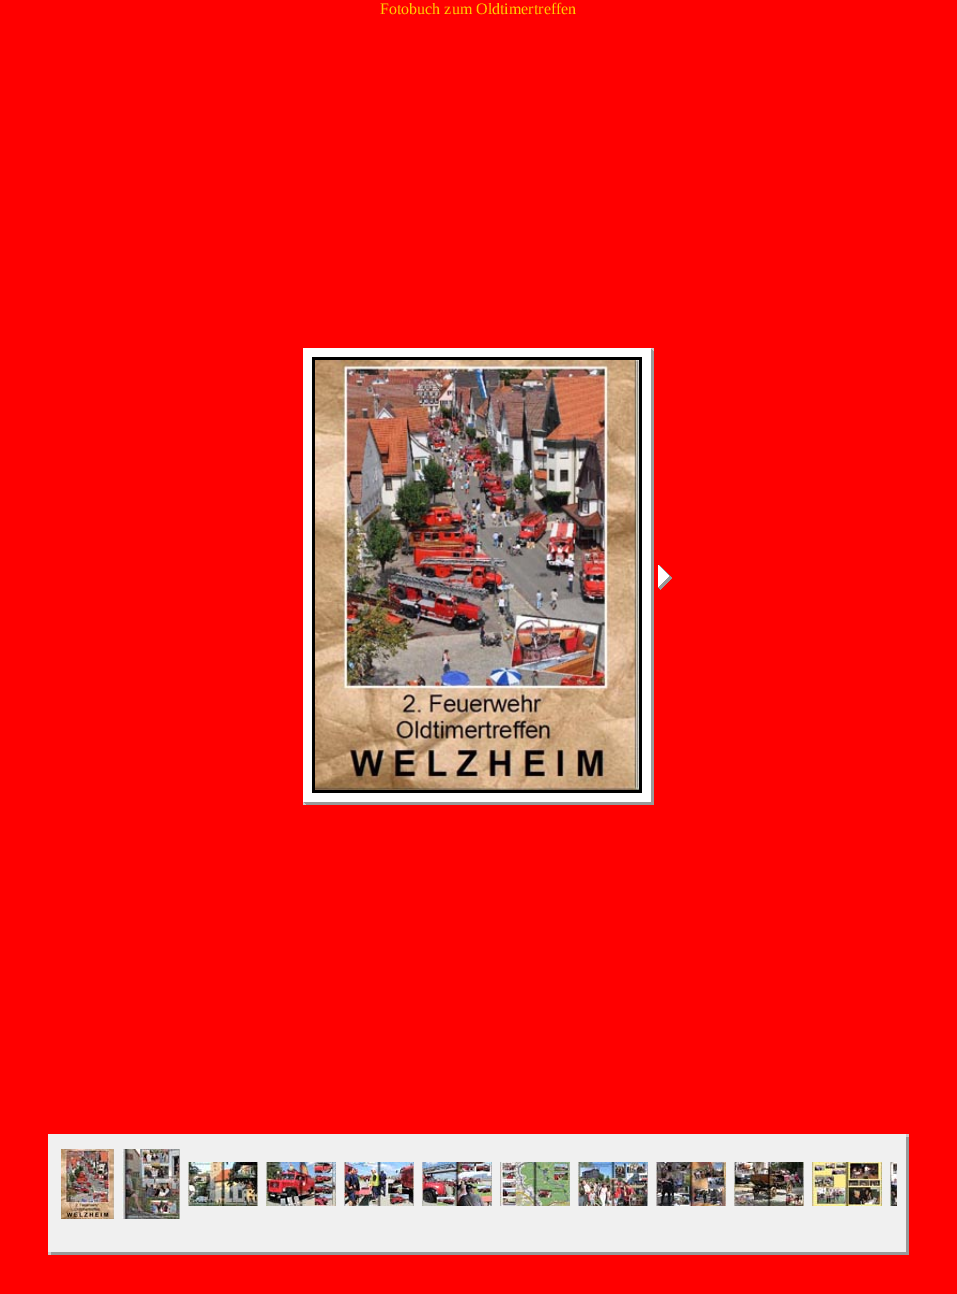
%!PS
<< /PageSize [957 1294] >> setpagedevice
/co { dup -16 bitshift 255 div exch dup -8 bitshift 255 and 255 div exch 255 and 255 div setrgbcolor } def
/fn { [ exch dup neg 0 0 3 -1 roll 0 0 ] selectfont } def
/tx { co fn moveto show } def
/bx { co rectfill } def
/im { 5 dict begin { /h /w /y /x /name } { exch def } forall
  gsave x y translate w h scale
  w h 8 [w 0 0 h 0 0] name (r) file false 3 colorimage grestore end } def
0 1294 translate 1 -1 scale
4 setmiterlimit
0 0 957 1294 16#FF0000 bx
(media/1.raw) 303 348 369 457 im
48 1134 858 118 16#F0F0F0 bx
(media/2.raw) 61 1149 836 70 im
906 1134 3 118 16#999999 bx
906 1134 3 3 16#CCCCCC bx
48 1252 861 3 16#999999 bx
48 1252 3 3 16#CCCCCC bx
(Fotobuch zum Oldtimertreffen) 380 14 /LiberationSerif-Regular 16 16#FFCC00 tx
showpage
